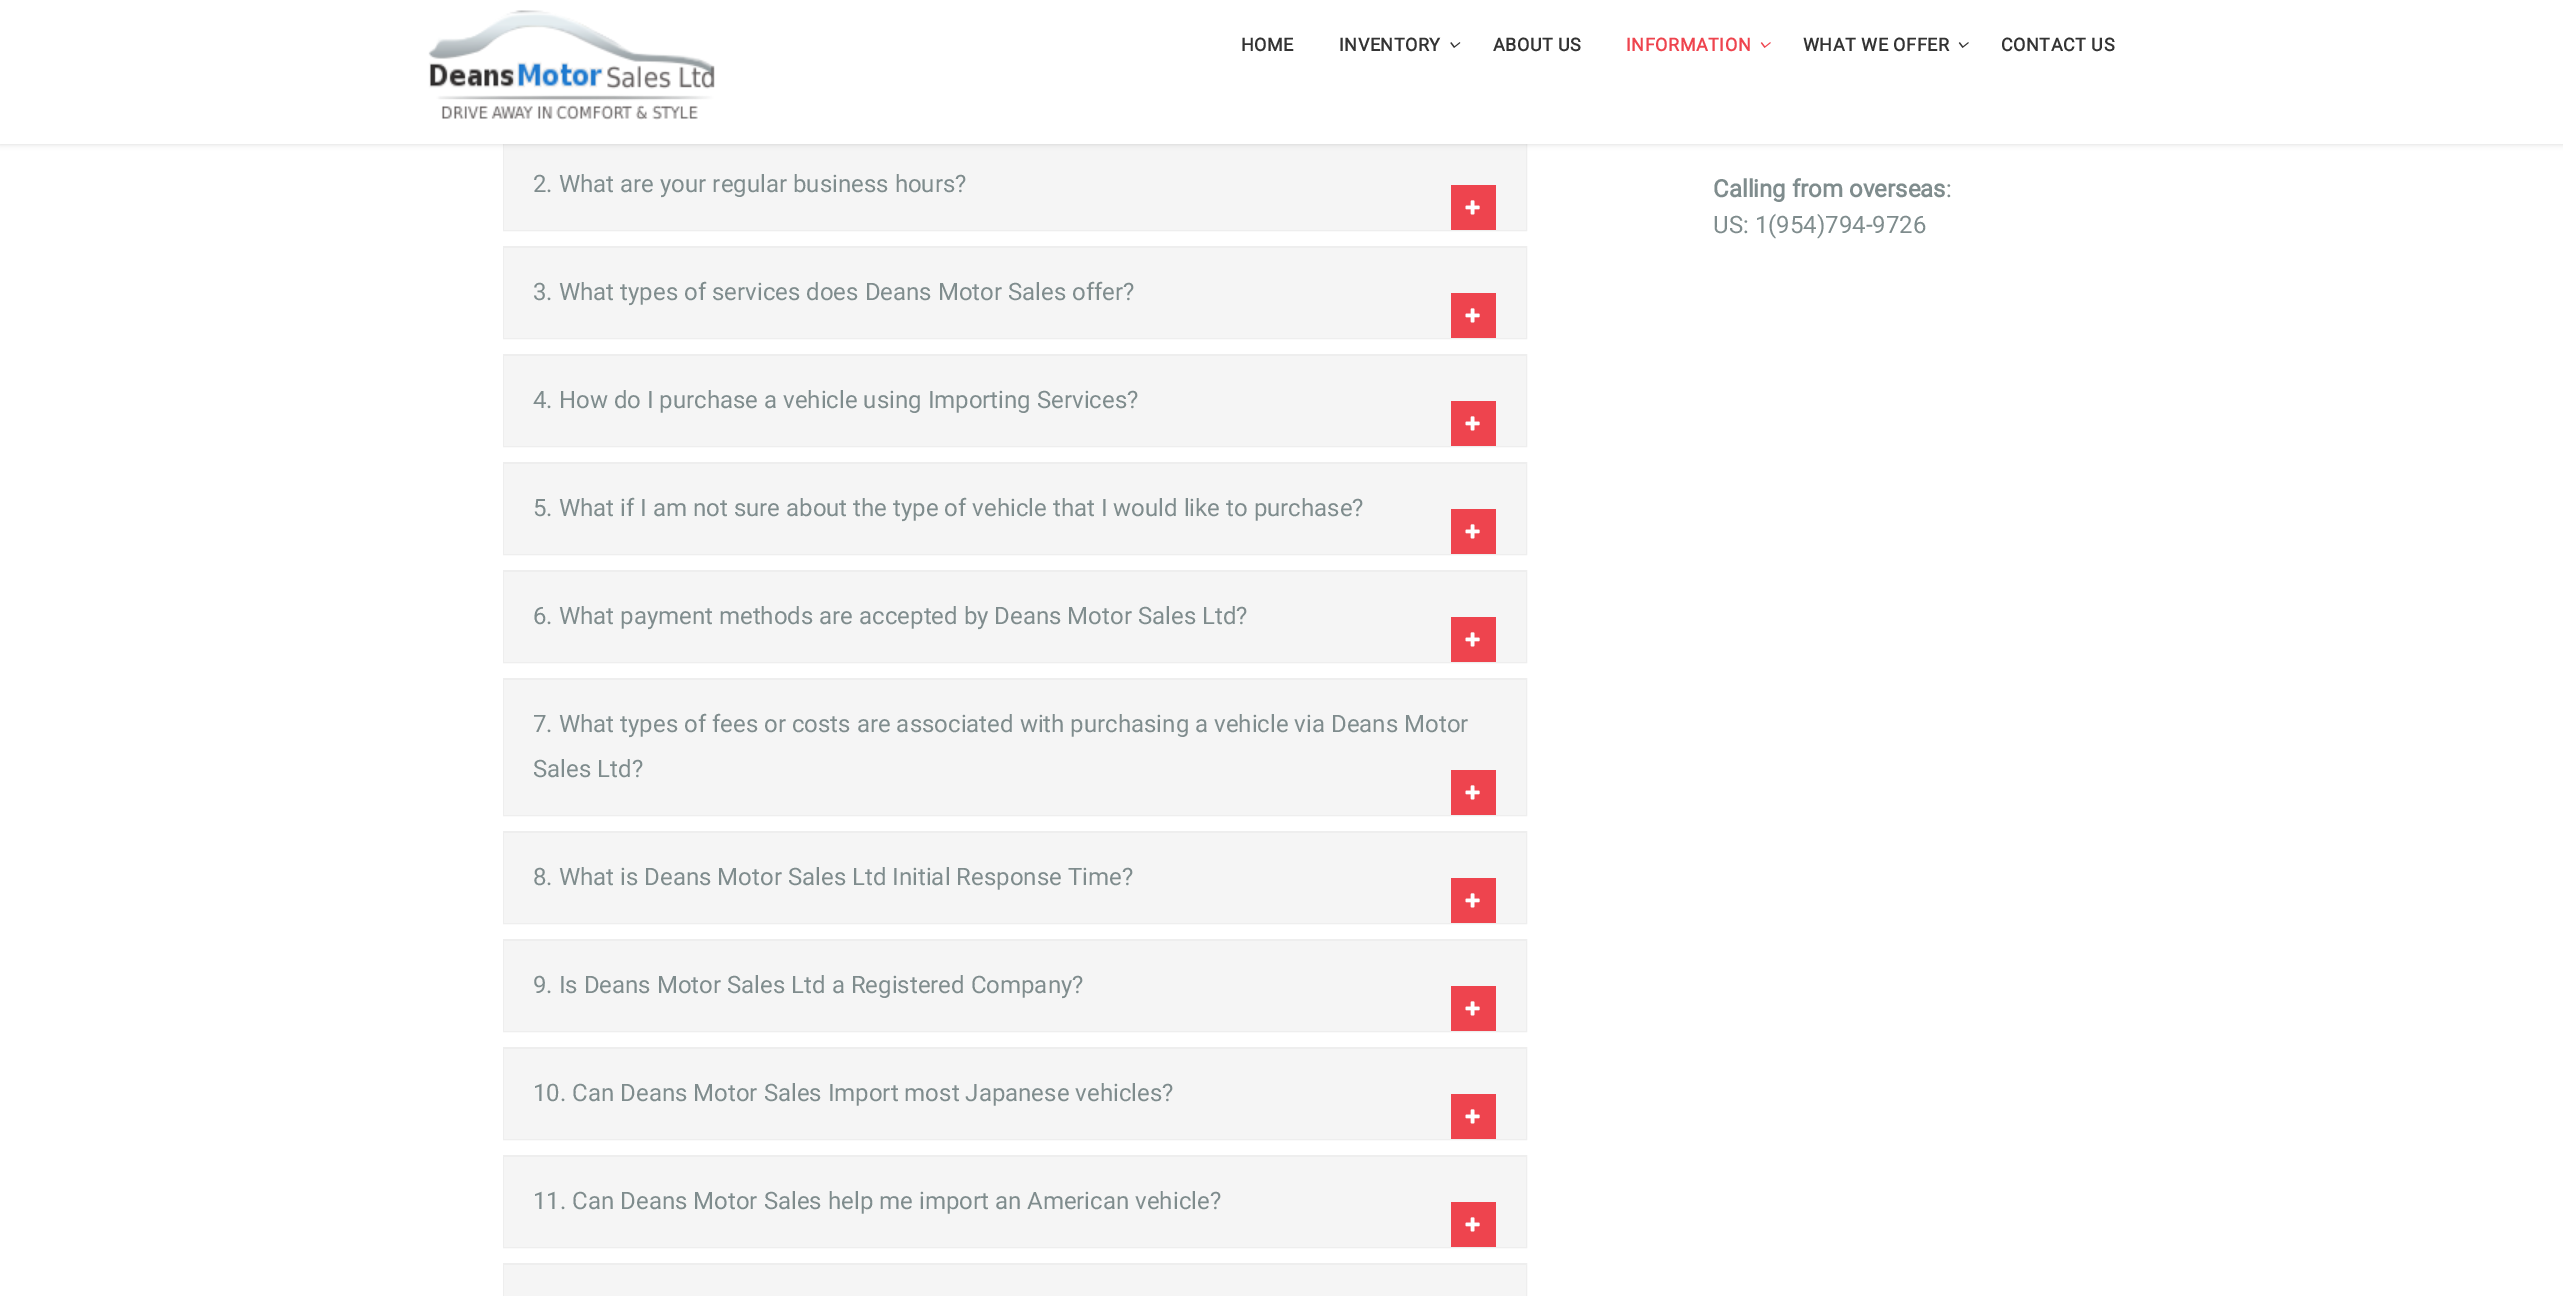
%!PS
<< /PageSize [2563 1296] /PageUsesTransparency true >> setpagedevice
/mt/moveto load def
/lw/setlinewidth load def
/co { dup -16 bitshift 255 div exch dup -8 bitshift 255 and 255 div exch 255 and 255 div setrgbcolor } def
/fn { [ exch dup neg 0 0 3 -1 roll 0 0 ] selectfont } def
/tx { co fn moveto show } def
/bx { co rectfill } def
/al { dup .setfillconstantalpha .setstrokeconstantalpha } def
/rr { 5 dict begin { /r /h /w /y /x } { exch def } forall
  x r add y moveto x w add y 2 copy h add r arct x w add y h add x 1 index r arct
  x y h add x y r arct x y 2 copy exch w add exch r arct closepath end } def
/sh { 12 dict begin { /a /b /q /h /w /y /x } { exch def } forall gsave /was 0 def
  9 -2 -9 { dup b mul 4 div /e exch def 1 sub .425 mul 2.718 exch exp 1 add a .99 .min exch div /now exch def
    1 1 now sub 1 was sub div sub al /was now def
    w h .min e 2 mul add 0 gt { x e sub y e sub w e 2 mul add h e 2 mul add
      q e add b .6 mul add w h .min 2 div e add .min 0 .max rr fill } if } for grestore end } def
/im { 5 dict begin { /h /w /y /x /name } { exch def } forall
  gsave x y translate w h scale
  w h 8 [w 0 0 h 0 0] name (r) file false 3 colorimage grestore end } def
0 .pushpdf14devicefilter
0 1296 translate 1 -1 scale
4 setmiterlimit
0 0 2563 1296 16#FFFFFF bx
16#EEEEEE co
2 lw
504 139 1022 91 rectstroke
504 144 1022 86 16#F5F5F5 bx
16#737373 co
0 0 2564 144 0 3 .3 sh
0 0 2563 144 16#FFFFFF bx
(media/1.raw) 428 10 287 110 im
(media/2.raw) 1450 42 11 6 im
(media/3.raw) 1760 42 11 6 im
(media/4.raw) 1958 42 11 6 im
1451 185 45 45 16#EE444E bx
(media/5.raw) 1465 200 15 15 im
16#EEEEEE co
504 247 1022 91 rectstroke
504 248 1022 90 16#F5F5F5 bx
1451 293 45 45 16#EE444E bx
(media/5.raw) 1465 308 15 15 im
16#EEEEEE co
504 355 1022 91 rectstroke
504 356 1022 90 16#F5F5F5 bx
1451 401 45 45 16#EE444E bx
(media/5.raw) 1465 416 15 15 im
16#EEEEEE co
504 463 1022 91 rectstroke
504 464 1022 90 16#F5F5F5 bx
1451 509 45 45 16#EE444E bx
(media/5.raw) 1465 524 15 15 im
16#EEEEEE co
504 571 1022 91 rectstroke
504 572 1022 90 16#F5F5F5 bx
1451 617 45 45 16#EE444E bx
(media/5.raw) 1465 632 15 15 im
16#EEEEEE co
504 679 1022 136 rectstroke
504 680 1022 135 16#F5F5F5 bx
1451 770 45 45 16#EE444E bx
(media/5.raw) 1465 785 15 15 im
16#EEEEEE co
504 832 1022 91 rectstroke
504 833 1022 90 16#F5F5F5 bx
1451 878 45 45 16#EE444E bx
(media/5.raw) 1465 893 15 15 im
16#EEEEEE co
504 940 1022 91 rectstroke
504 941 1022 90 16#F5F5F5 bx
1451 986 45 45 16#EE444E bx
(media/5.raw) 1465 1001 15 15 im
16#EEEEEE co
504 1048 1022 91 rectstroke
504 1049 1022 90 16#F5F5F5 bx
1451 1094 45 45 16#EE444E bx
(media/5.raw) 1465 1109 15 15 im
16#EEEEEE co
504 1156 1022 91 rectstroke
504 1157 1022 90 16#F5F5F5 bx
1451 1202 45 45 16#EE444E bx
(media/5.raw) 1465 1217 15 15 im
16#EEEEEE co
504 1264 1022 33 rectstroke
504 1265 1022 31 16#F5F5F5 bx
/Roboto-Bold 18 fn
16#333333 co
1241 51 mt .5 0 (HOME) ashow
1339 51 mt .5 0 (INVENTORY) ashow
1493 51 mt .5 0 (ABOUT US) ashow
16#EE444E co
1626 51 mt .5 0 (INFORMATION) ashow
16#333333 co
1803 51 mt .5 0 (WHAT WE OFFER) ashow
2001 51 mt .5 0 (CONTACT US) ashow
(2. What are your regular business hours?) 533 192 /Roboto-Regular 24 16#7F8C8D tx
(3. What types of services does Deans Motor Sales offer?) 533 300 /Roboto-Regular 24 16#7F8C8D tx
(4. How do I purchase a vehicle using Importing Services?) 533 408 /Roboto-Regular 24 16#7F8C8D tx
(5. What if I am not sure about the type of vehicle that I would like to purchase?) 533 516 /Roboto-Regular 24 16#7F8C8D tx
(6. What payment methods are accepted by Deans Motor Sales Ltd?) 533 624 /Roboto-Regular 24 16#7F8C8D tx
(7. What types of fees or costs are associated with purchasing a vehicle via Deans Motor) 533 732 /Roboto-Regular 24 16#7F8C8D tx
(Sales Ltd?) 533 777 /Roboto-Regular 24 16#7F8C8D tx
(8. What is Deans Motor Sales Ltd Initial Response Time?) 533 885 /Roboto-Regular 24 16#7F8C8D tx
(9. Is Deans Motor Sales Ltd a Registered Company?) 533 993 /Roboto-Regular 24 16#7F8C8D tx
(10. Can Deans Motor Sales Import most Japanese vehicles?) 533 1101 /Roboto-Regular 24 16#7F8C8D tx
(11. Can Deans Motor Sales help me import an American vehicle?) 533 1209 /Roboto-Regular 24 16#7F8C8D tx
(Calling from overseas) 1713 197 /Roboto-Bold 24 16#7F8C8D tx
(:) 1946 197 /Roboto-Regular 24 16#7F8C8D tx
(US: 1\(954\)794-9726) 1713 233 /Roboto-Regular 24 16#7F8C8D tx
.poppdf14devicefilter showpage
